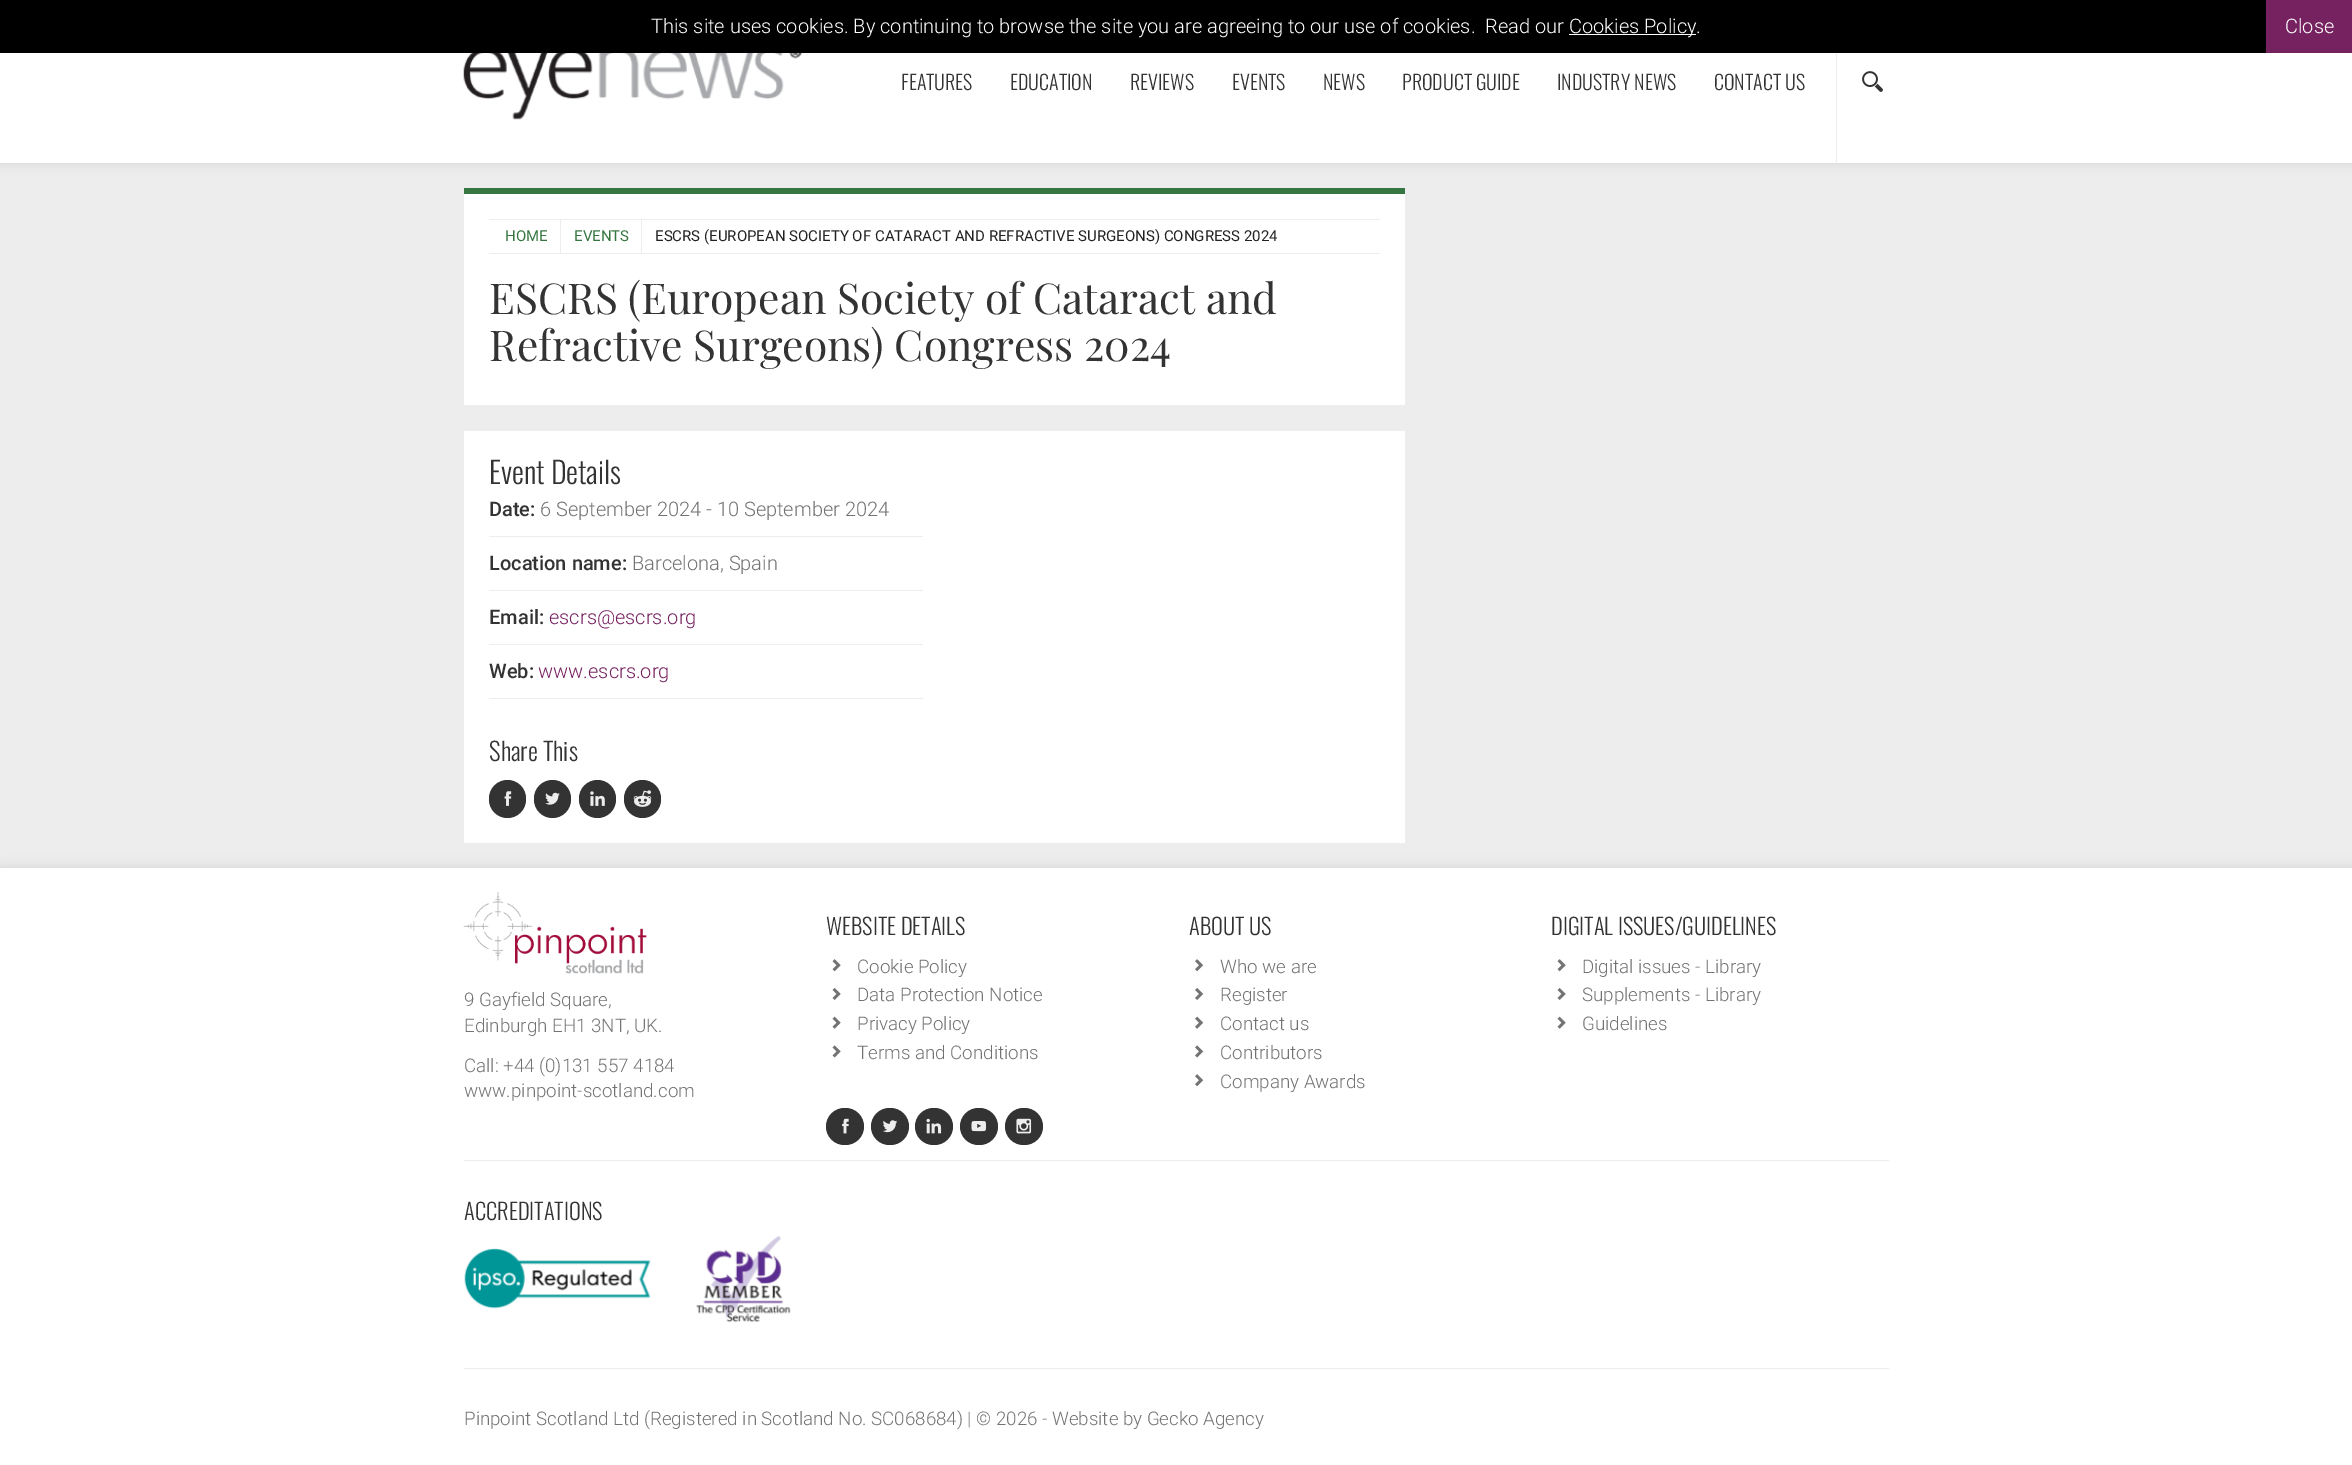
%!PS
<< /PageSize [2352 1465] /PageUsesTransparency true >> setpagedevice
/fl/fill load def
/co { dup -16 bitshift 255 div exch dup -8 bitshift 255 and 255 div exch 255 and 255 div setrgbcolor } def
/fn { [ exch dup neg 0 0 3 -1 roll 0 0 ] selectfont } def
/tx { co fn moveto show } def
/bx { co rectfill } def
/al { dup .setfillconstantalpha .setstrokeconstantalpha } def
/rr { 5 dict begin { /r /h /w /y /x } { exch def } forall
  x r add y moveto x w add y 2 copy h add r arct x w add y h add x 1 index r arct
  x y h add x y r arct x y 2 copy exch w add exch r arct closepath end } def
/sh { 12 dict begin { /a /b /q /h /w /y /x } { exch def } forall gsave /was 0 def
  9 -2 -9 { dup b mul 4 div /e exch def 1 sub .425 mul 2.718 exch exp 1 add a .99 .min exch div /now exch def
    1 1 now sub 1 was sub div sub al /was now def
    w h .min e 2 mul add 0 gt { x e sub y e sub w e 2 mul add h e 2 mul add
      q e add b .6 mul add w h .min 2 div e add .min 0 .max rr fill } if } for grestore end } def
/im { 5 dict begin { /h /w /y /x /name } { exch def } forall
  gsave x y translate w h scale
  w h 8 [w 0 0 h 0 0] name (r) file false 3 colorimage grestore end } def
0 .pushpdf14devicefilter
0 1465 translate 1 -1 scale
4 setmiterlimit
0 0 2352 1465 16#EDEDED bx
16#000000 co
0 0 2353 163 0 6 .1 sh
0 0 2266 53 16#000000 bx
1569 34 127 1 16#FFFFFF bx
2266 0 86 53 16#762260 bx
0 53 2352 110 16#FFFFFF bx
(media/1.raw) 463 53 339 67 im
1836 53 1 110 16#EDEDED bx
(media/2.raw) 1862 71 21 21 im
464 194 941 211 16#FFFFFF bx
464 188 941 6 16#367642 bx
489 219 891 1 16#EDEDED bx
489 253 891 1 16#EDEDED bx
560 220 1 33 16#EDEDED bx
641 220 1 33 16#EDEDED bx
464 431 941 412 16#FFFFFF bx
489 536 434 1 16#EDEDED bx
489 590 434 1 16#EDEDED bx
489 644 434 1 16#EDEDED bx
489 698 434 1 16#EDEDED bx
16#333333 co
489 780 37 38 18.5 rr fl
(media/3.raw) 504 791 8 15 im
534 780 37 38 18.5 rr fl
(media/4.raw) 545 792 15 13 im
579 780 37 38 18.5 rr fl
(media/5.raw) 590 791 15 15 im
624 780 37 38 18.5 rr fl
(media/6.raw) 633 790 19 17 im
16#000000 co
0 868 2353 597 0 6 .1 sh
0 868 2352 597 16#FFFFFF bx
(media/7.raw) 832 959 9 13 im
(media/8.raw) 832 988 9 12 im
(media/9.raw) 832 1016 9 13 im
(media/10.raw) 832 1045 9 13 im
16#333333 co
826 1108 38 37 18.5 rr fl
(media/11.raw) 842 1118 7 16 im
871 1108 38 37 18.5 rr fl
(media/12.raw) 883 1120 15 13 im
915 1108 38 37 18.5 rr fl
(media/13.raw) 926 1118 16 16 im
960 1108 38 37 18.5 rr fl
(media/14.raw) 971 1121 16 11 im
1005 1108 38 37 18.5 rr fl
(media/15.raw) 1016 1118 16 16 im
(media/16.raw) 1195 959 9 13 im
(media/17.raw) 1195 988 9 12 im
(media/18.raw) 1195 1016 9 13 im
(media/19.raw) 1195 1045 9 13 im
(media/16.raw) 1195 1074 9 13 im
(media/7.raw) 1557 959 9 13 im
(media/8.raw) 1557 988 9 12 im
(media/9.raw) 1557 1016 9 13 im
(media/20.raw) 463 892 184 82 im
464 1160 1425 1 16#EDEDED bx
464 1368 1425 1 16#EDEDED bx
(media/21.raw) 464 1248 187 61 im
(media/22.raw) 696 1236 95 87 im
(This site uses cookies. By continuing to browse the site you are agreeing to our use of cookies.) 651 33 /Roboto-Light 20 16#FFFFFF tx
(Read our) 1485 33 /Roboto-Light 20 16#FFFFFF tx
(Cookies Policy.) 1569 33 /Roboto-Light 20 16#FFFFFF tx
(Close) 2285 33 /Roboto-Light 20 16#FFFFFF tx
(FEATURES) 901 90 /Oswald-Light 20 16#333333 tx
(EDUCATION) 1010 90 /Oswald-Light 20 16#333333 tx
(REVIEWS) 1130 90 /Oswald-Light 20 16#333333 tx
(EVENTS) 1232 90 /Oswald-Light 20 16#333333 tx
(NEWS) 1323 90 /Oswald-Light 20 16#333333 tx
(PRODUCT GUIDE) 1402 90 /Oswald-Light 20 16#333333 tx
(INDUSTRY NEWS) 1557 90 /Oswald-Light 20 16#333333 tx
(CONTACT US) 1714 90 /Oswald-Light 20 16#333333 tx
(HOME) 505 241 /Roboto-Regular 15 16#367642 tx
(EVENTS) 574 241 /Roboto-Regular 15 16#367642 tx
(ESCRS \(EUROPEAN SOCIETY OF CATARACT AND REFRACTIVE SURGEONS\) CONGRESS 2024) 655 241 /Roboto-Regular 15 16#222222 tx
(ESCRS \(European Society of Cataract and) 489 314 /PlayfairDisplay-Regular 42.5 16#333333 tx
(Refractive Surgeons\) Congress 2024) 489 361 /PlayfairDisplay-Regular 42.5 16#333333 tx
(Event Details) 489 484 /Oswald-Light 30 16#333333 tx
(Date:) 489 516 /Roboto-Medium 20 16#333333 tx
(6 September 2024 - 10 September 2024) 540 516 /Roboto-Light 20 16#737373 tx
(Location name:) 489 570 /Roboto-Medium 20 16#333333 tx
(Barcelona, Spain) 632 570 /Roboto-Light 20 16#737373 tx
(Email:) 489 624 /Roboto-Medium 20 16#333333 tx
(escrs@escrs.org) 549 624 /Roboto-Light 20 16#762260 tx
(Web:) 489 678 /Roboto-Medium 20 16#333333 tx
(www.escrs.org) 538 678 /Roboto-Light 20 16#762260 tx
(Share This) 489 761 /Oswald-Light 25 16#333333 tx
(WEBSITE DETAILS) 826 935 /Oswald-Light 22.5 16#333333 tx
(Cookie Policy) 857 973 /Roboto-Light 18.75 16#737373 tx
(Data Protection Notice) 857 1001 /Roboto-Light 18.75 16#737373 tx
(Privacy Policy) 857 1030 /Roboto-Light 18.75 16#737373 tx
(Terms and Conditions) 857 1059 /Roboto-Light 18.75 16#737373 tx
(ABOUT US) 1189 935 /Oswald-Light 22.5 16#333333 tx
(Who we are) 1220 973 /Roboto-Light 18.75 16#737373 tx
(Register) 1220 1001 /Roboto-Light 18.75 16#737373 tx
(Contact us) 1220 1030 /Roboto-Light 18.75 16#737373 tx
(Contributors) 1220 1059 /Roboto-Light 18.75 16#737373 tx
(Company Awards) 1220 1088 /Roboto-Light 18.75 16#737373 tx
(DIGITAL ISSUES/GUIDELINES) 1551 935 /Oswald-Light 22.5 16#333333 tx
(Digital issues - Library) 1582 973 /Roboto-Light 18.75 16#737373 tx
(Supplements - Library) 1582 1001 /Roboto-Light 18.75 16#737373 tx
(Guidelines) 1582 1030 /Roboto-Light 18.75 16#737373 tx
(9 Gayfield Square,) 464 1006 /Roboto-Light 18.75 16#737373 tx
(Edinburgh EH1 3NT, UK.) 464 1032 /Roboto-Light 18.75 16#737373 tx
(Call: +44 \(0\)131 557 4184) 464 1072 /Roboto-Light 18.75 16#737373 tx
(www.pinpoint-scotland.com) 464 1097 /Roboto-Light 18.75 16#737373 tx
(ACCREDITATIONS) 464 1220 /Oswald-Light 22.5 16#333333 tx
(Pinpoint Scotland Ltd \(Registered in Scotland No. SC068684\) | © 2026 - Website by Gecko Agency) 464 1425 /Roboto-Light 18.75 16#737373 tx
.poppdf14devicefilter showpage
